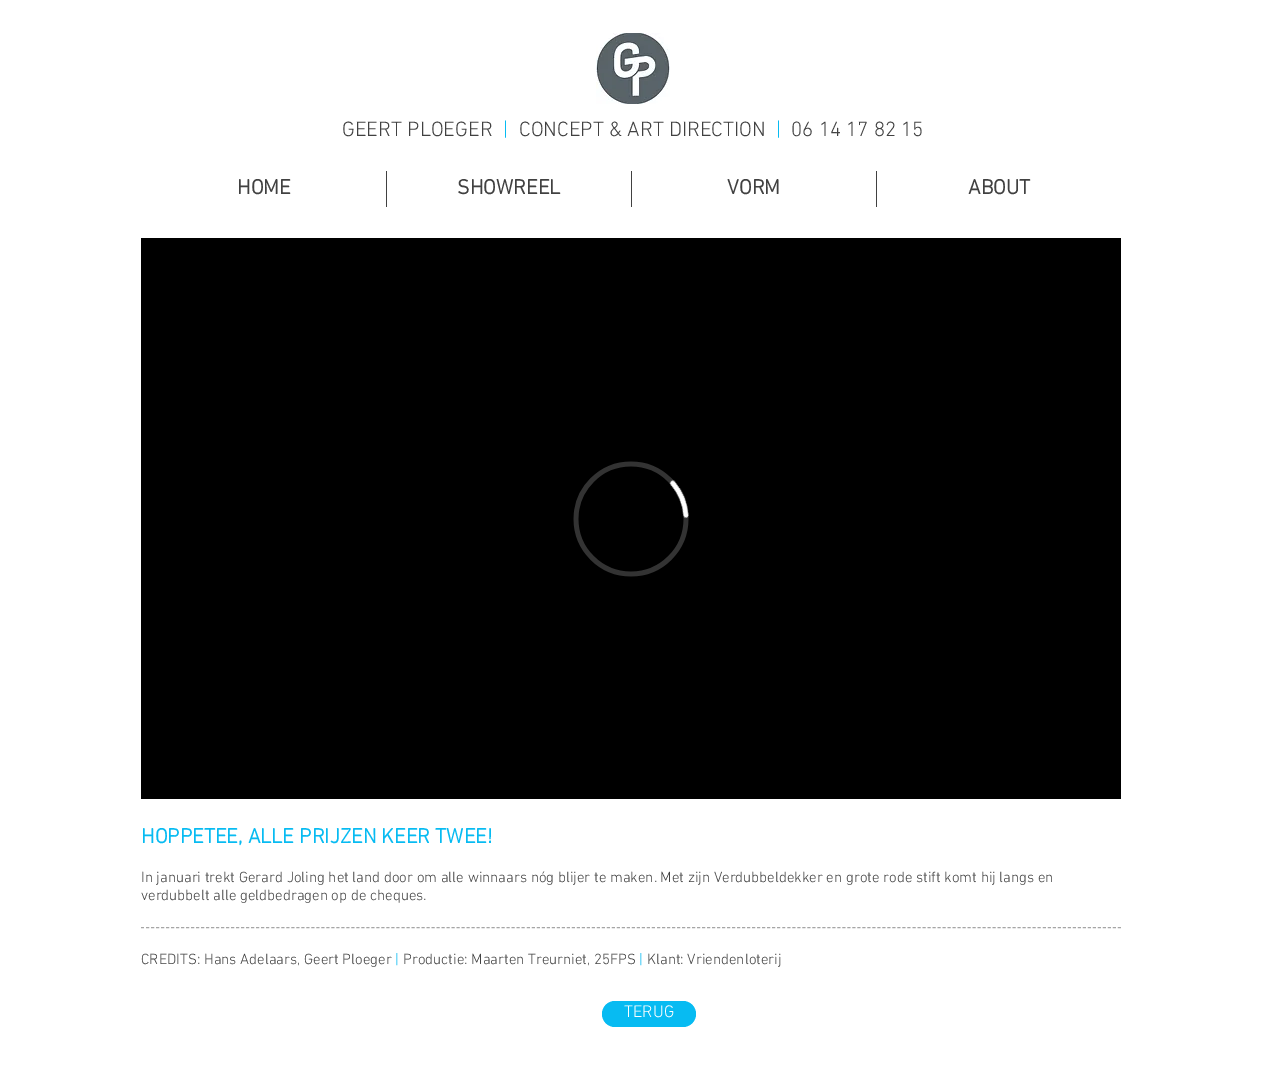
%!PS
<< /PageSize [1262 1071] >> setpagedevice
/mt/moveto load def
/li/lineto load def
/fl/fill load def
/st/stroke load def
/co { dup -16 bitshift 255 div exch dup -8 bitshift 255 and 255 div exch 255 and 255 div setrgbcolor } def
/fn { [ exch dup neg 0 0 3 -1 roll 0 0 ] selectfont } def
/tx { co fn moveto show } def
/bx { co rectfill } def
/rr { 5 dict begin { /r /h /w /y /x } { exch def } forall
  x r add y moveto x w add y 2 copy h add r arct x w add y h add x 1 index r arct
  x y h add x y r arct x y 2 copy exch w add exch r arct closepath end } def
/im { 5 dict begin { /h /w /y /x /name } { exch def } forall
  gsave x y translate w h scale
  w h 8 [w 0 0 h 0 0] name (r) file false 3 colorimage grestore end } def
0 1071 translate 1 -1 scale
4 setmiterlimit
0 0 1262 1071 16#FFFFFF bx
(media/1.raw) 596 33 74 71 im
386 171 1 36 16#414141 bx
631 171 1 36 16#414141 bx
876 171 1 36 16#414141 bx
(media/2.raw) 141 238 980 561 im
16#A6A6A6 co
[3 2.01] 0 setdash
141 927.5 mt 1121 927.5 li st
16#07BBF2 co
602 1001 94 26 13 rr fl
(GEERT PLOEGER) 342 136 /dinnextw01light-Light 21 16#414141 tx
(|) 503 136 /dinnextw01light-Light 21 16#07BBF2 tx
(CONCEPT & ART DIRECTION) 519 136 /dinnextw01light-Light 21 16#414141 tx
(|) 776 136 /dinnextw01light-Light 21 16#07BBF2 tx
(06 14 17 82 15) 791 136 /dinnextw01light-Light 21 16#414141 tx
(HOME) 237 194 /dinnextw01light-Bold 21 16#414141 tx
(SHOWREEL) 457 194 /dinnextw01light-Bold 21 16#414141 tx
(VORM) 727 194 /dinnextw01light-Bold 21 16#414141 tx
(ABOUT) 968 194 /dinnextw01light-Bold 21 16#414141 tx
(HOPPETEE, ALLE PRIJZEN KEER TWEE!) 141 843 /dinnextw01light-Bold 21 16#07BBF2 tx
(In januari trekt Gerard Joling het land door om alle winnaars nóg blijer te maken. Met zijn Verdubbeldekker en grote rode stift komt hij langs en) 141 882 /dinnextw01light-Light 15 16#414141 tx
(verdubbelt alle geldbedragen op de cheques.) 141 900 /dinnextw01light-Light 15 16#414141 tx
(CREDITS: Hans Adelaars, Geert Ploeger) 141 964 /dinnextw01light-Light 15 16#414141 tx
(|) 395 964 /dinnextw01light-Light 15 16#07BBF2 tx
(Productie: Maarten Treurniet, 25FPS) 403 964 /dinnextw01light-Light 15 16#414141 tx
(|) 639 964 /dinnextw01light-Light 15 16#07BBF2 tx
(Klant: Vriendenloterij) 647 964 /dinnextw01light-Light 15 16#414141 tx
(TERUG) 624 1017 /dinnextw01light-Light 17 16#FFFFFF tx
showpage
